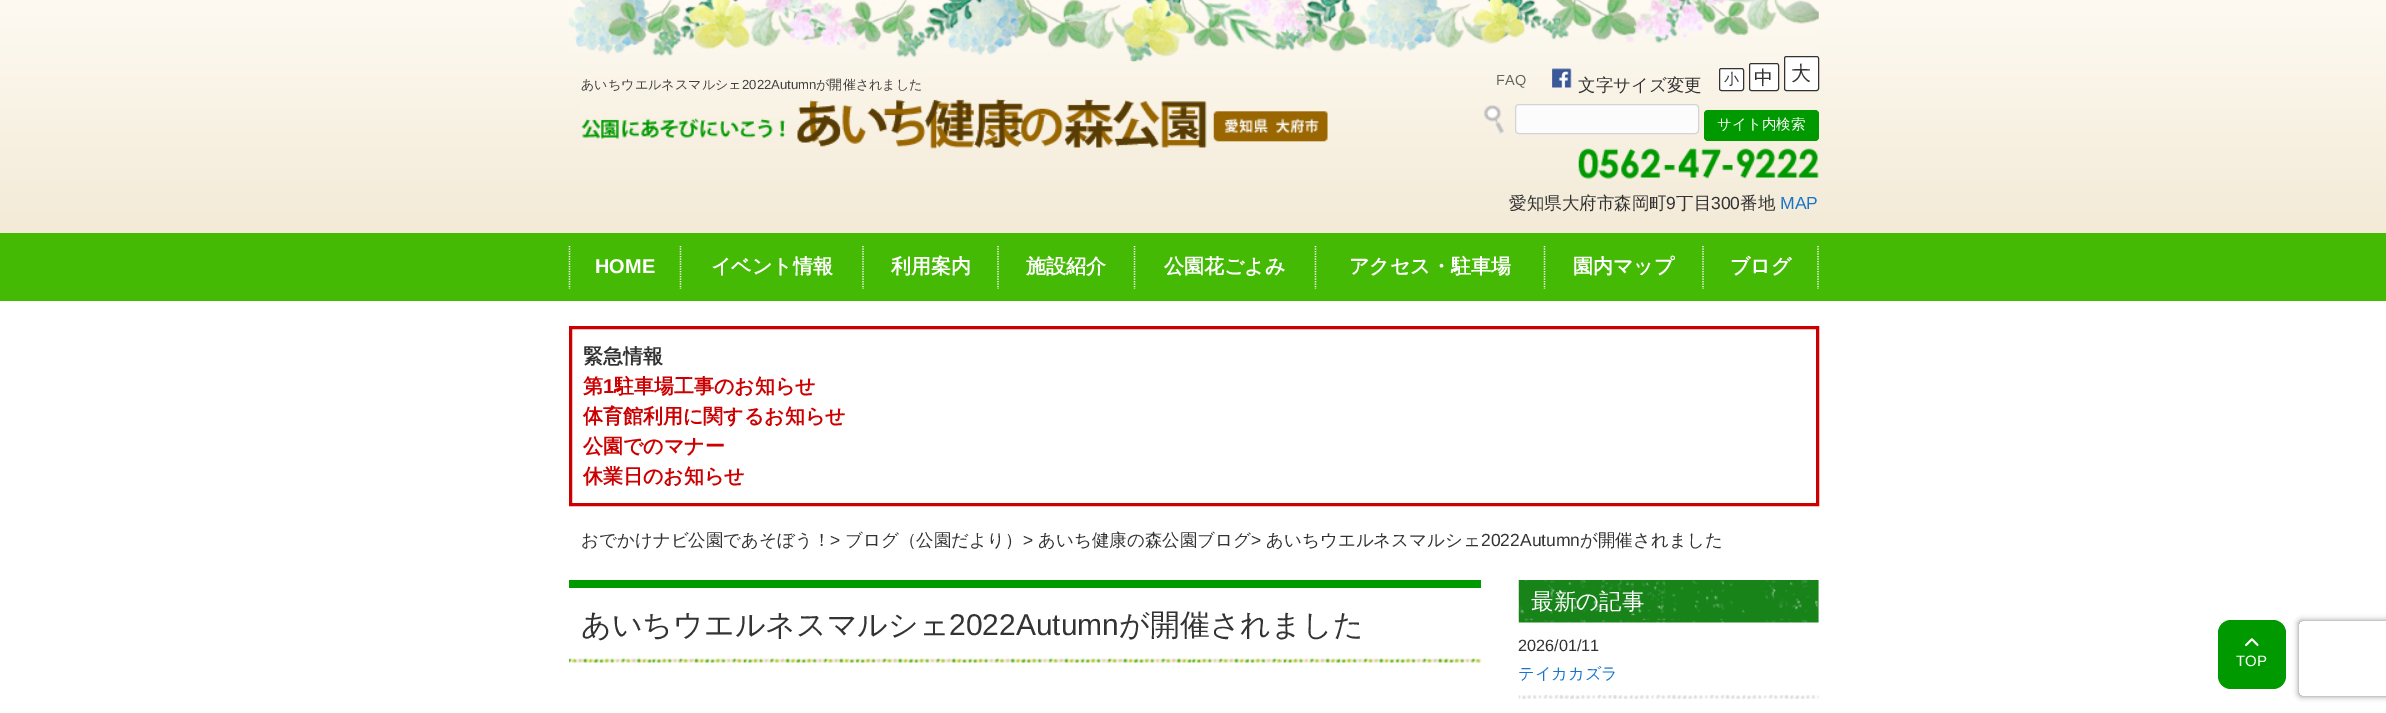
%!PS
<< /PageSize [2386 713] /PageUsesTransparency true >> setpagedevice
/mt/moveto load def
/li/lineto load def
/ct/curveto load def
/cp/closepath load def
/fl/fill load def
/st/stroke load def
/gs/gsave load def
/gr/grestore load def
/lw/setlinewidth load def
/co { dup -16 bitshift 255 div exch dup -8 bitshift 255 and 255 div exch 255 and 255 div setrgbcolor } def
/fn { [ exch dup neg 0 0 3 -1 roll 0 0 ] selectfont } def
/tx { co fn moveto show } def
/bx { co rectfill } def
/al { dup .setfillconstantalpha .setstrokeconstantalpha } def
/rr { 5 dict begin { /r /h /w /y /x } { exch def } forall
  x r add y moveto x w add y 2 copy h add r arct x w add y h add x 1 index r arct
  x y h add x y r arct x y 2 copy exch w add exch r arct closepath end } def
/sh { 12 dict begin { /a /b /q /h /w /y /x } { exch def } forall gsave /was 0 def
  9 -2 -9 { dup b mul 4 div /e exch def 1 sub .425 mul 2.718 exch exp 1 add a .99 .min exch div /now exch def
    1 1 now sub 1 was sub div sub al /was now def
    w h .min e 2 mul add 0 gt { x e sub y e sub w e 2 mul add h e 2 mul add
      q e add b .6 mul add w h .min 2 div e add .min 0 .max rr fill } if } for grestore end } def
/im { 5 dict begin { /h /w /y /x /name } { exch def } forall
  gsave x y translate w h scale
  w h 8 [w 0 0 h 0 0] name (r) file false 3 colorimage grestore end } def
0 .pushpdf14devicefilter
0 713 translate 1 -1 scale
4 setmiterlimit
0 0 2386 713 16#FFFFFF bx
gs 0 0 mt 2386 0 li 2386 233 li 0 233 li cp clip newpath
<< /ShadingType 2 /ColorSpace /DeviceRGB /Coords [1193 0 1193 233] /Extend [true true] /Function << /FunctionType 2 /Domain [0 1] /C0 [.996 .98 .949] /C1 [.953 .918 .843] /N 1 >> >> shfill gr
(media/1.raw) 568 0 1251 62 im
(media/2.raw) 581 98 747 51 im
(media/3.raw) 1552 68 20 20 im
1719.5 68.5 24 22 2 rr gs fl gr
16#333333 co
st
16#FFFFFF co
1749.5 63.5 29 27 2 rr gs fl gr
16#333333 co
st
16#FFFFFF co
1784.5 56.5 34 34 2 rr gs fl gr
16#333333 co
st
(media/4.raw) 1483 105 21 29 im
16#FCFCFC co
1515.5 104.5 183 29 3.5 rr gs fl gr
16#D4D4D7 co
st
16#009900 co
1704 110 115 31 4 rr fl
(media/5.raw) 1578 148 241 31 im
0 233 2386 68 16#44BA04 bx
16#FFFFFF co
1.2 lw
[1.25 1.25] 0 setdash
569.5 246 mt 569.5 289 li st
680.5 246 mt 680.5 289 li st
863 246 mt 863 289 li st
998 246 mt 998 289 li st
1134.5 246 mt 1134.5 289 li st
1315.5 246 mt 1315.5 289 li st
1544.5 246 mt 1544.5 289 li st
1818 246 mt 1818 289 li st
1703 246 mt 1703 289 li st
16#CC0000 co
3 lw
[] 0 setdash
570.5 327.5 1247 177 rectstroke
(media/6.raw) 568 658 914 5 im
569 580 912 8 16#009900 bx
(media/7.raw) 1518 580 301 43 im
(media/8.raw) 1518 695 301 4 im
2218 620 68 69 13 rr fl
(media/9.raw) 2245 638 14 9 im
gs
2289 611 mt 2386 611 li 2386 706 li 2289 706 li cp 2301.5 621 mt 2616.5 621 li 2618 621 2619 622 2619 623.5 ct 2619 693.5 li 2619 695 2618 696 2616.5 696 ct 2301.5 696 li 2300 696 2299 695 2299 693.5 ct 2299 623.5 li 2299 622 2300 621 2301.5 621 ct cp eoclip newpath
16#808080 co
2299 621 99 75 2.5 3 1 sh
gr
(あいちウエルネスマルシェ) 581 89 /WenQuanYiZenHei-Medium 13.1 16#404040 tx
(2022Autumn) 742 89 /LiberationSans-Regular 13.1 16#404040 tx
(が開催されました) 816 89 /WenQuanYiZenHei-Medium 13.1 16#404040 tx
(FAQ) 1496 85 /LiberationSans-Regular 14.5 16#626861 tx
(文字サイズ変更) 1578 91 /WenQuanYiZenHei-Medium 17.5 16#333333 tx
(小) 1724 84 /WenQuanYiZenHei-Medium 15 16#333333 tx
(中) 1754 84 /WenQuanYiZenHei-Medium 19 16#333333 tx
(大) 1791 80 /WenQuanYiZenHei-Medium 20 16#333333 tx
(サイト内検索) 1717 129 /WenQuanYiZenHei-Medium 14.5 16#FFFFFF tx
(愛知県大府市森岡町) 1509 209 /WenQuanYiZenHei-Medium 17.5 16#333333 tx
(9) 1666 209 /LiberationSans-Regular 17.5 16#333333 tx
(丁目) 1676 209 /WenQuanYiZenHei-Medium 17.5 16#333333 tx
(300) 1711 209 /LiberationSans-Regular 17.5 16#333333 tx
(番地) 1740 209 /WenQuanYiZenHei-Medium 17.5 16#333333 tx
(MAP) 1780 209 /LiberationSans-Regular 17.5 16#1975CA tx
(HOME) 595 273 /LiberationSans-Bold 20 16#FFFFFF tx
(イベント情報) 711 273 /WenQuanYiZenHei-Bold 20 16#FFFFFF tx
(利用案内) 891 273 /WenQuanYiZenHei-Bold 20 16#FFFFFF tx
(施設紹介) 1026 273 /WenQuanYiZenHei-Bold 20 16#FFFFFF tx
(公園花ごよみ) 1164 273 /WenQuanYiZenHei-Bold 20 16#FFFFFF tx
(アクセス・駐車場) 1349 273 /WenQuanYiZenHei-Bold 20 16#FFFFFF tx
(園内マップ) 1573 273 /WenQuanYiZenHei-Bold 20 16#FFFFFF tx
(ブログ) 1730 273 /WenQuanYiZenHei-Bold 20 16#FFFFFF tx
(緊急情報) 583 363 /WenQuanYiZenHei-Bold 20 16#333333 tx
(第) 583 393 /WenQuanYiZenHei-Bold 20 16#CC0000 tx
(1) 603 393 /LiberationSans-Bold 20 16#CC0000 tx
(駐車場工事のお知らせ) 614 393 /WenQuanYiZenHei-Bold 20 16#CC0000 tx
(体育館利用に関するお知らせ) 583 423 /WenQuanYiZenHei-Bold 20 16#CC0000 tx
(公園でのマナー) 583 453 /WenQuanYiZenHei-Bold 20 16#CC0000 tx
(休業日のお知らせ) 583 483 /WenQuanYiZenHei-Bold 20 16#CC0000 tx
(おでかけナビ公園であそぼう！) 581 546 /WenQuanYiZenHei-Medium 17.5 16#333333 tx
(>) 830 546 /LiberationSans-Regular 17.5 16#333333 tx
(ブログ（公園だより）) 845 546 /WenQuanYiZenHei-Medium 17.5 16#333333 tx
(>) 1023 546 /LiberationSans-Regular 17.5 16#333333 tx
(あいち健康の森公園ブログ) 1038 546 /WenQuanYiZenHei-Medium 17.5 16#333333 tx
(>) 1251 546 /LiberationSans-Regular 17.5 16#333333 tx
(あいちウエルネスマルシェ) 1266 546 /WenQuanYiZenHei-Medium 17.5 16#333333 tx
(2022Autumn) 1481 546 /LiberationSans-Regular 17.5 16#333333 tx
(が開催されました) 1580 546 /WenQuanYiZenHei-Medium 17.5 16#333333 tx
(あいちウエルネスマルシェ) 581 635 /WenQuanYiZenHei-Medium 30 16#333333 tx
(2022Autumn) 949 635 /LiberationSans-Regular 30 16#333333 tx
(が開催されました) 1119 635 /WenQuanYiZenHei-Medium 30 16#333333 tx
(最新の記事) 1531 609 /WenQuanYiZenHei-Medium 22.5 16#FFFFFF tx
(2026/01/11) 1518 651 /LiberationSans-Regular 16.25 16#333333 tx
(テイカカズラ) 1518 679 /WenQuanYiZenHei-Medium 16.25 16#1975CA tx
(TOP) 2236 666 /LiberationSans-Regular 15 16#FFFFFF tx
.poppdf14devicefilter showpage
